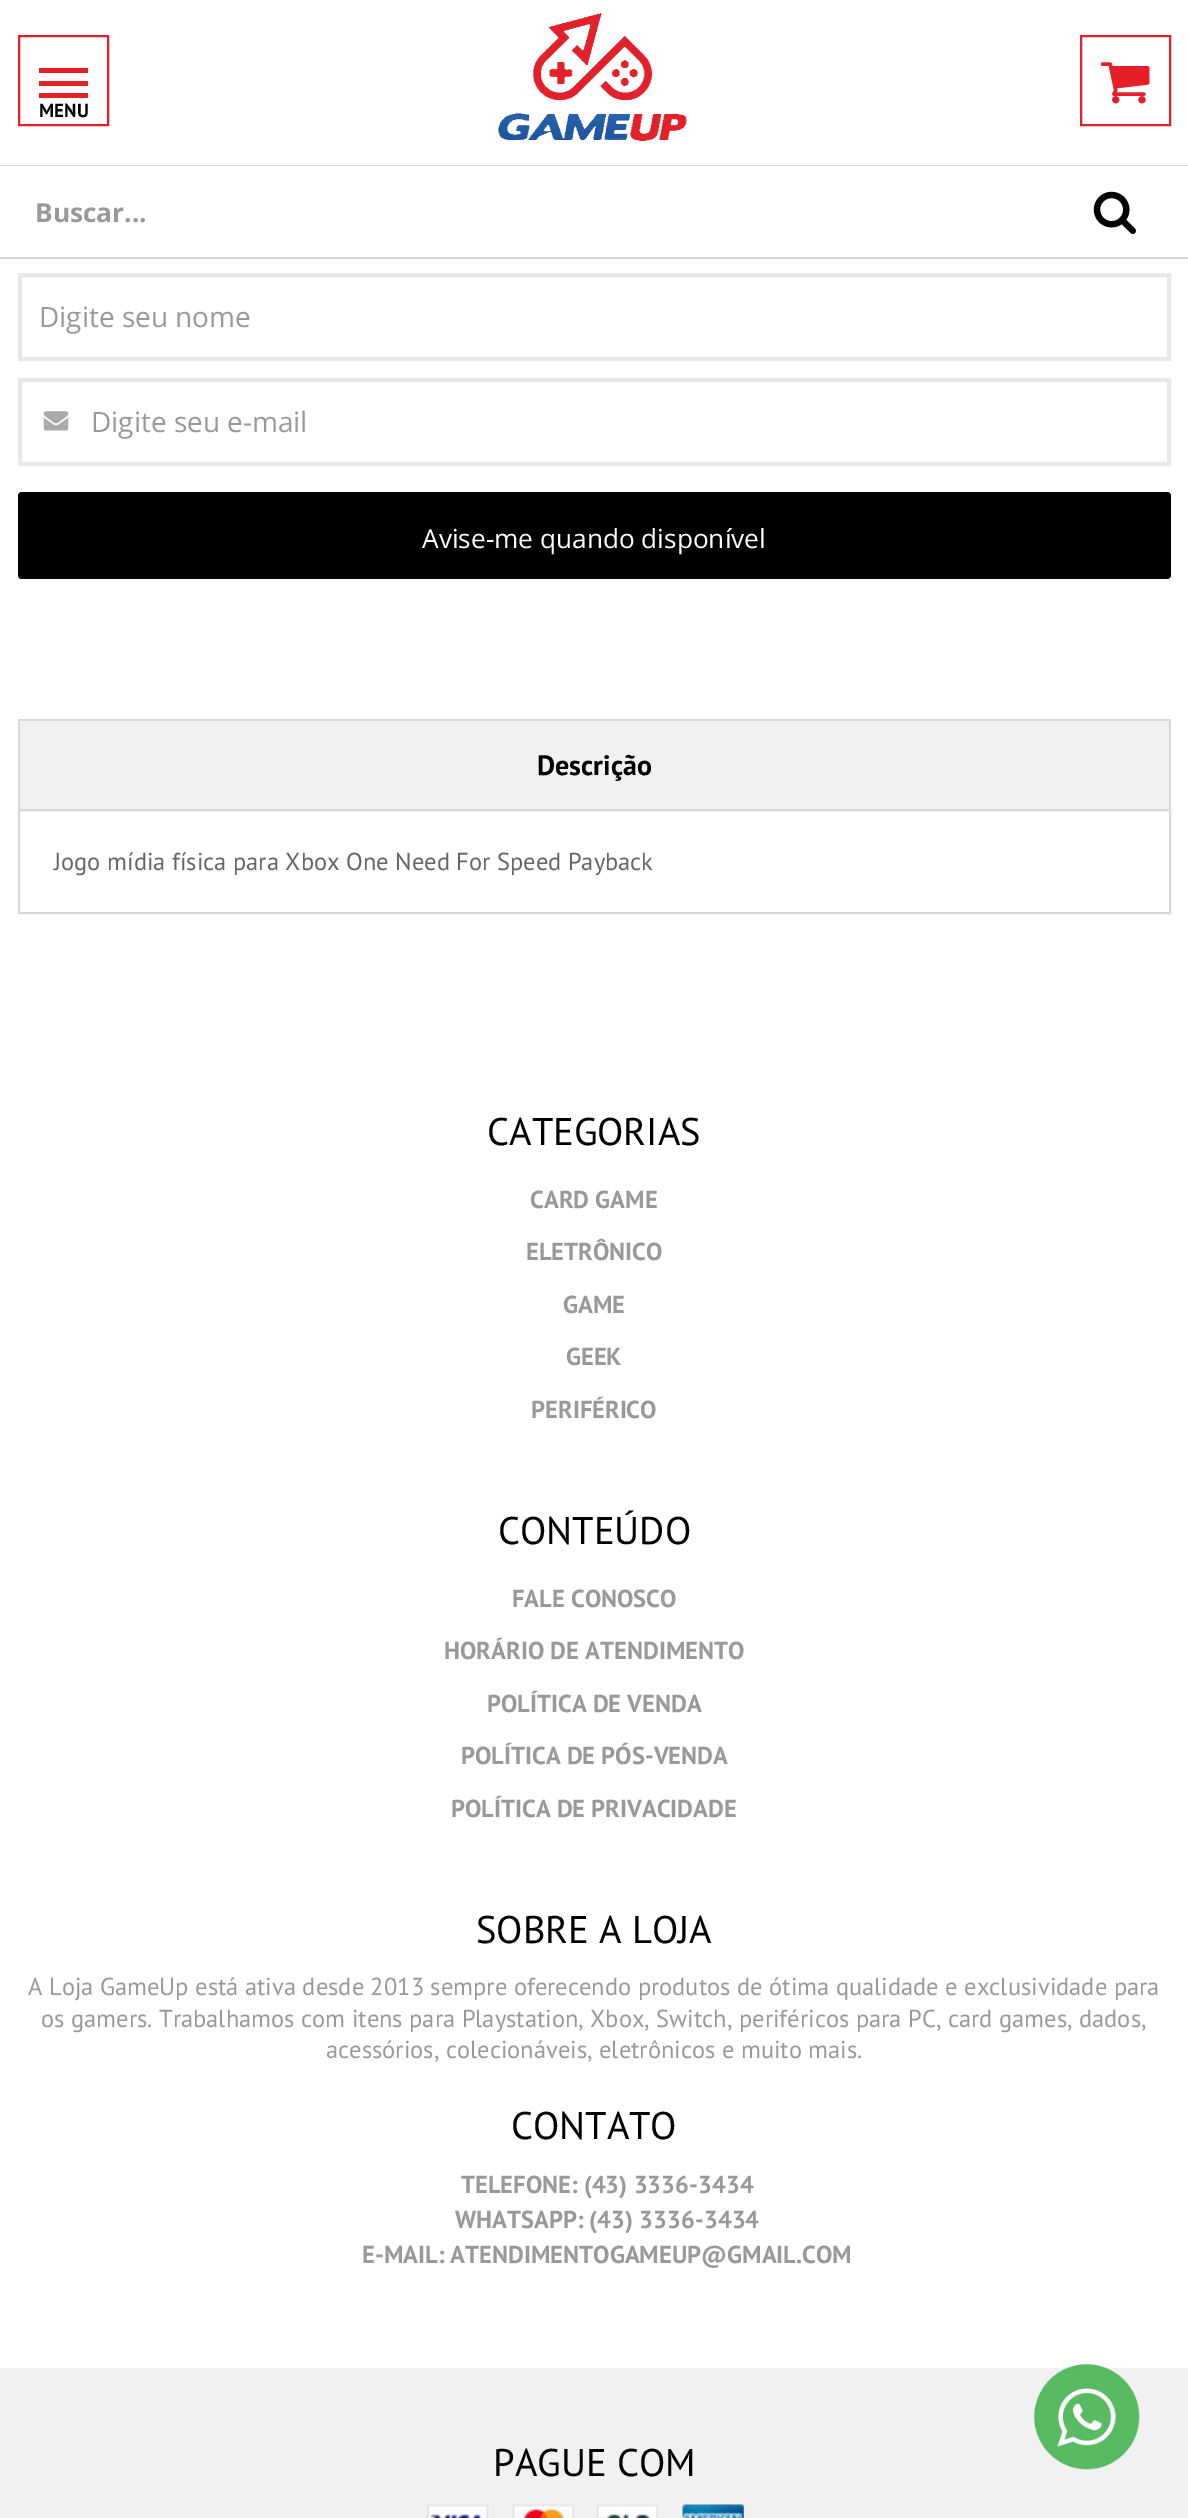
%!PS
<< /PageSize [1188 2518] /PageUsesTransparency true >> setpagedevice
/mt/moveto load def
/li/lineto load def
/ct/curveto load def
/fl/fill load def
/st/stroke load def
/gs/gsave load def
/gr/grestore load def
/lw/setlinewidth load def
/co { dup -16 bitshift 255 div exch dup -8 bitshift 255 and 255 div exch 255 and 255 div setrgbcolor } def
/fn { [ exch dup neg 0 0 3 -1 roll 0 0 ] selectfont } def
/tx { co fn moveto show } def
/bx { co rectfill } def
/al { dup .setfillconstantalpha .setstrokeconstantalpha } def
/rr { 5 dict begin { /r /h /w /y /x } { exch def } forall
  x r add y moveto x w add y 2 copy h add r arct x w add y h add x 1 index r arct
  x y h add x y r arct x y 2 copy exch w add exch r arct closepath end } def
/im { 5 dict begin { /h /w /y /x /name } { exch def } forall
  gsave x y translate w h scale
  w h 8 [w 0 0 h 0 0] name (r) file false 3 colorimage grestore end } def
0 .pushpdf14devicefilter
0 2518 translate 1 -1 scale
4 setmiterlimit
0 0 1188 2518 16#FFFFFF bx
16#E51E27 co
2 lw
19 36 89 89 rectstroke
39 68 49 5 16#E51E27 bx
39 81 49 5 16#E51E27 bx
39 93 49 5 16#E51E27 bx
(media/1.raw) 498 13 189 128 im
1081 36 89 89 rectstroke
(media/2.raw) 1100 62 50 42 im
0 165 1188 1 16#D8D8D8 bx
0 257 1188 2 16#D8D8D8 bx
(media/3.raw) 1093 191 43 43 im
16#E8E8E8 co
4 lw
20 275 1149 84 rectstroke
20 380 1149 84 rectstroke
(media/4.raw) 43 411 26 20 im
16#000000 co
18 492 1153 87 4 rr fl
gs
18 492 1153 87 rectclip
0.2 al
1.8 lw
1169 577.5 mt 1167 578.5 li 21 578.5 li 19 577.5 li st
0.1 al
19 577.5 mt 18.5 576 li 18.5 508.5 li 18.5 503.5 16 492.5 21 492.5 ct 1167 492.5 li 1172.5 492.5 1170 503.5 1170 508.5 ct 1170 576 li 1169 577.5 li st
gr
20 721 1149 88 16#F1F1F1 bx
18 719 1153 2 16#D8D8D8 bx
1169 719 2 90 16#D8D8D8 bx
18 719 2 90 16#D8D8D8 bx
2 lw
19 810 1151 103 rectstroke
0 2368 1188 150 16#F1F1F1 bx
(media/5.raw) 427 2504 62 14 im
(media/6.raw) 512 2504 62 14 im
(media/7.raw) 596 2504 62 14 im
(media/8.raw) 682 2504 62 14 im
(media/9.raw) 1034 2364 106 106 im
(MENU) 39 117 /PTSans-Bold 19 16#000000 tx
(Buscar...) 35 222 /OpenSans-Bold 26.25 16#999999 tx
(Digite seu nome) 39 327 /OpenSans-Regular 28 16#999999 tx
(Digite seu e-mail) 91 432 /OpenSans-Regular 28 16#999999 tx
(Avise-me quando disponível) 422 548 /OpenSans-Regular 26.25 16#FFFFFF tx
(Descrição) 537 775 /PTSans-Bold 28 16#000000 tx
(Jogo mídia física para Xbox One Need For Speed Payback) 54 870 /PTSans-Regular 24.5 16#666666 tx
(CATEGORIAS) 487 1145 /PTSans-Regular 38.5 16#000000 tx
(CARD GAME) 530 1208 /PTSans-Bold 24.5 16#999999 tx
(ELETRÔNICO) 526 1260 /PTSans-Bold 24.5 16#999999 tx
(GAME) 563 1313 /PTSans-Bold 24.5 16#999999 tx
(GEEK) 566 1365 /PTSans-Bold 24.5 16#999999 tx
(PERIFÉRICO) 531 1418 /PTSans-Bold 24.5 16#999999 tx
(CONTEÚDO) 498 1544 /PTSans-Regular 38.5 16#000000 tx
(FALE CONOSCO) 512 1607 /PTSans-Bold 24.5 16#999999 tx
(HORÁRIO DE ATENDIMENTO) 444 1659 /PTSans-Bold 24.5 16#999999 tx
(POLÍTICA DE VENDA) 487 1712 /PTSans-Bold 24.5 16#999999 tx
(POLÍTICA DE PÓS-VENDA) 461 1764 /PTSans-Bold 24.5 16#999999 tx
(POLÍTICA DE PRIVACIDADE) 451 1817 /PTSans-Bold 24.5 16#999999 tx
(SOBRE A LOJA) 476 1943 /PTSans-Regular 38.5 16#000000 tx
(A Loja GameUp está ativa desde 2013 sempre oferecendo produtos de ótima qualidade e exclusividade para) 28 1995 /PTSans-Regular 24.5 16#999999 tx
(os gamers. Trabalhamos com itens para Playstation, Xbox, Switch, periféricos para PC, card games, dados,) 41 2027 /PTSans-Regular 24.5 16#999999 tx
(acessórios, colecionáveis, eletrônicos e muito mais.) 326 2058 /PTSans-Regular 24.5 16#999999 tx
(CONTATO) 511 2139 /PTSans-Regular 38.5 16#000000 tx
(TELEFONE: \(43\) 3336-3434) 461 2193 /PTSans-Bold 24.5 16#999999 tx
(WHATSAPP: \(43\) 3336-3434) 455 2228 /PTSans-Bold 24.5 16#999999 tx
(E-MAIL: ATENDIMENTOGAMEUP@GMAIL.COM) 362 2263 /PTSans-Bold 24.5 16#999999 tx
(PAGUE COM) 493 2476 /PTSans-Regular 38.5 16#000000 tx
.poppdf14devicefilter showpage
